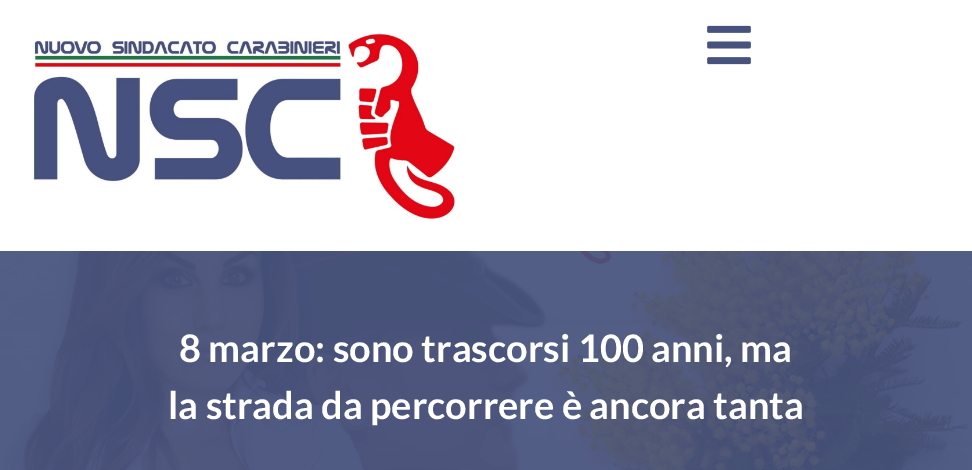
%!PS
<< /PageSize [972 470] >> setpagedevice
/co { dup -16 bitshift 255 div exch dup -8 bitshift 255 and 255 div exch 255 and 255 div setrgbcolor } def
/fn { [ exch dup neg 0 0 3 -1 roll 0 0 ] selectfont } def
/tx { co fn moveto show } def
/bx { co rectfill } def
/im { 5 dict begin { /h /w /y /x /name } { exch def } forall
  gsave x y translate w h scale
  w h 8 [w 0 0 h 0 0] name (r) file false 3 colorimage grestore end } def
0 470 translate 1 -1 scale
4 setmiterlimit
0 0 972 470 16#FFFFFF bx
(media/1.raw) 33 33 424 187 im
(media/2.raw) 707 25 44 40 im
(media/3.raw) 0 251 972 219 im
(8 marzo: sono trascorsi 100 anni, ma) 179 362 /Lato-Bold 38 16#FFFFFF tx
(la strada da percorrere è ancora tanta) 168 419 /Lato-Bold 38 16#FFFFFF tx
showpage
